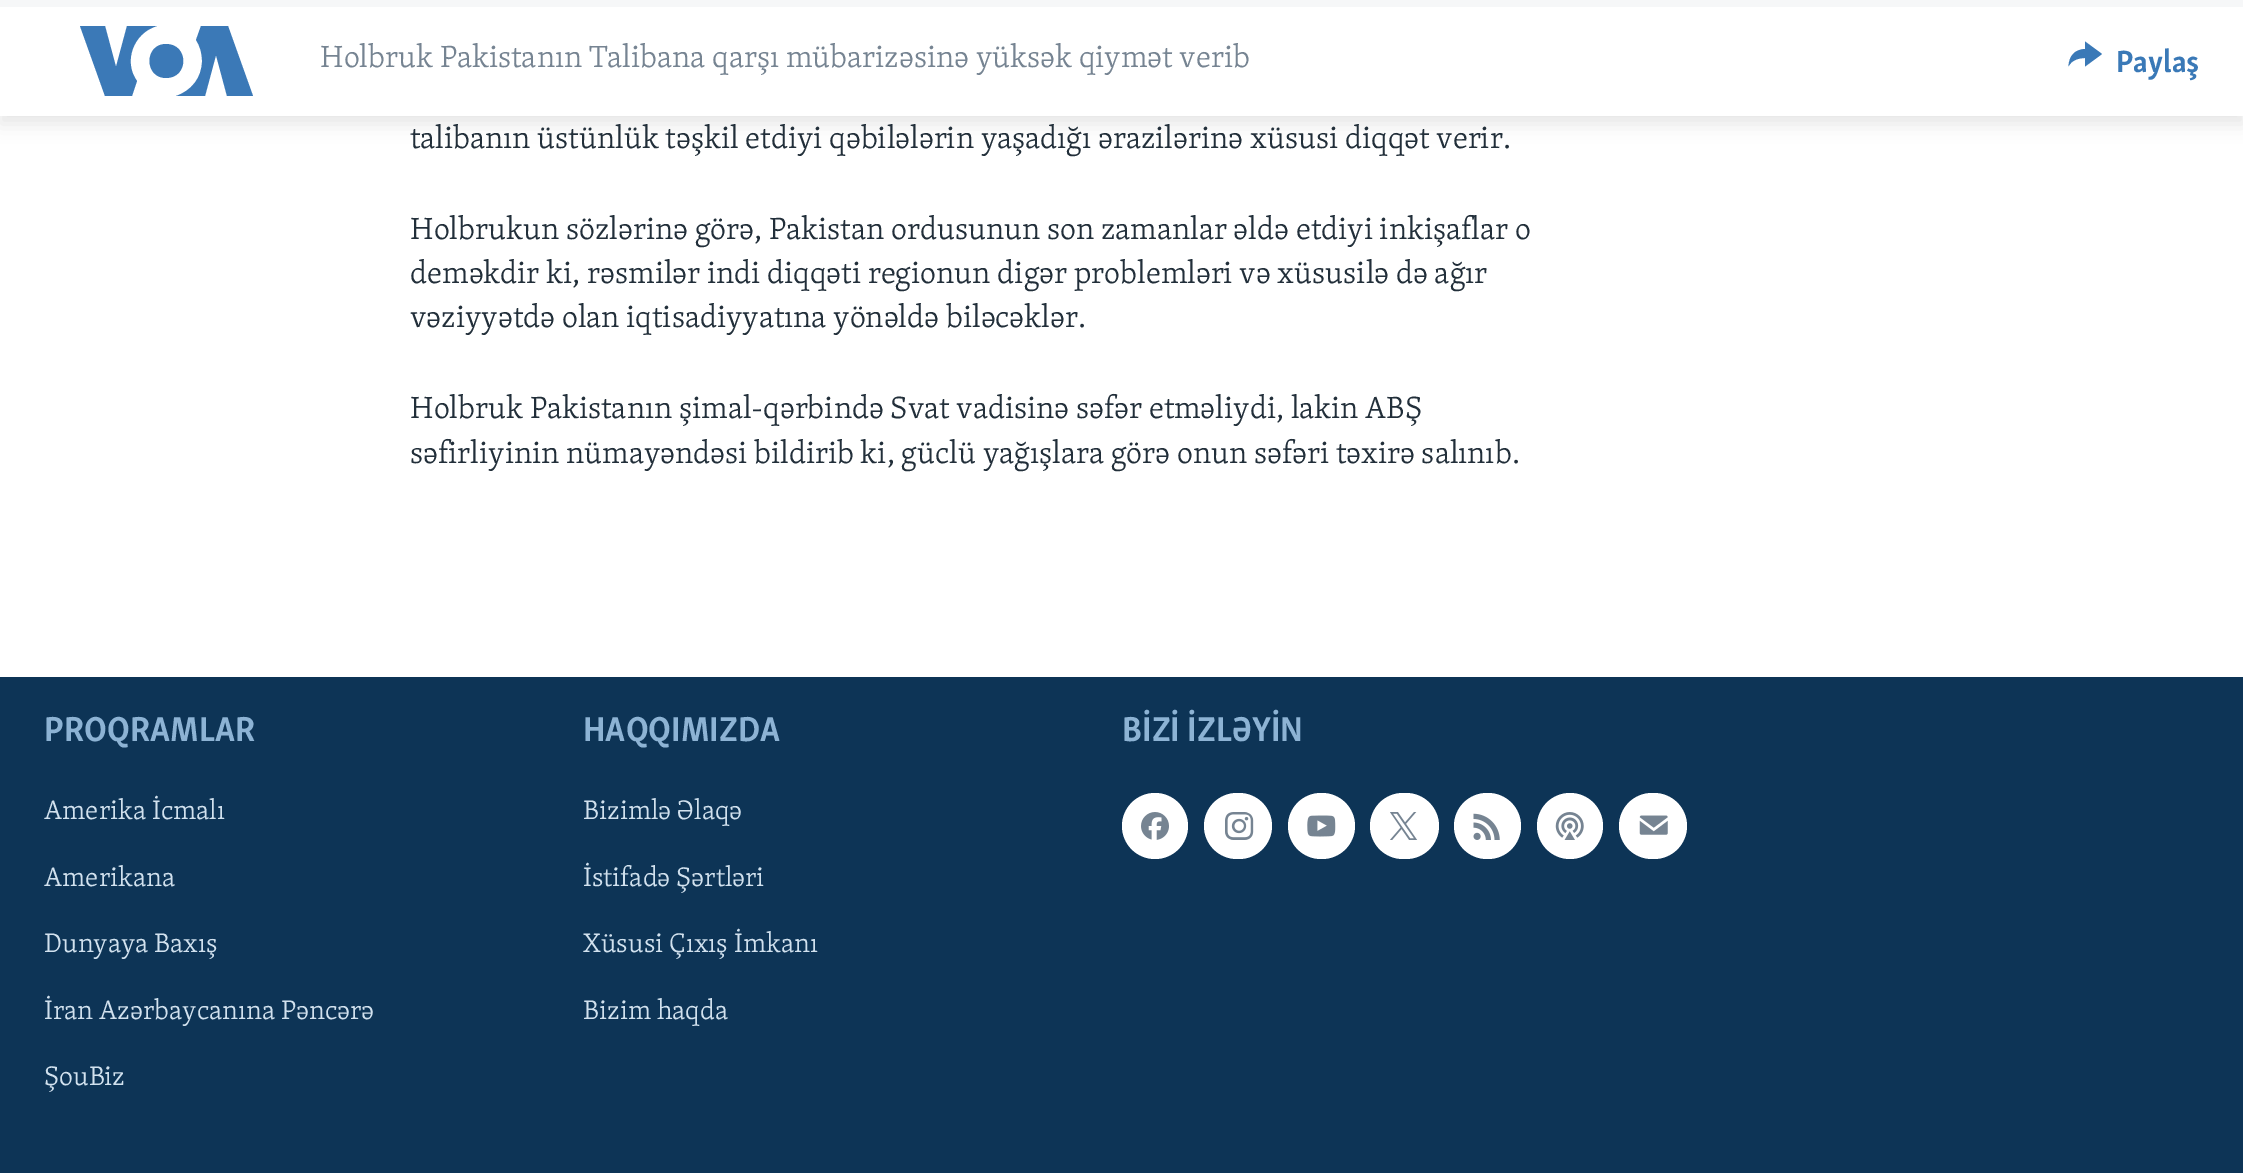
%!PS
<< /PageSize [2243 1173] /PageUsesTransparency true >> setpagedevice
/mt/moveto load def
/li/lineto load def
/ct/curveto load def
/cp/closepath load def
/fl/fill load def
/co { dup -16 bitshift 255 div exch dup -8 bitshift 255 and 255 div exch 255 and 255 div setrgbcolor } def
/fn { [ exch dup neg 0 0 3 -1 roll 0 0 ] selectfont } def
/tx { co fn moveto show } def
/bx { co rectfill } def
/al { dup .setfillconstantalpha .setstrokeconstantalpha } def
/ci { newpath 0 360 arc closepath } def
/rr { 5 dict begin { /r /h /w /y /x } { exch def } forall
  x r add y moveto x w add y 2 copy h add r arct x w add y h add x 1 index r arct
  x y h add x y r arct x y 2 copy exch w add exch r arct closepath end } def
/sh { 12 dict begin { /a /b /q /h /w /y /x } { exch def } forall gsave /was 0 def
  9 -2 -9 { dup b mul 4 div /e exch def 1 sub .425 mul 2.718 exch exp 1 add a .99 .min exch div /now exch def
    1 1 now sub 1 was sub div sub al /was now def
    w h .min e 2 mul add 0 gt { x e sub y e sub w e 2 mul add h e 2 mul add
      q e add b .6 mul add w h .min 2 div e add .min 0 .max rr fill } if } for grestore end } def
/im { 5 dict begin { /h /w /y /x /name } { exch def } forall
  gsave x y translate w h scale
  w h 8 [w 0 0 h 0 0] name (r) file false 3 colorimage grestore end } def
0 .pushpdf14devicefilter
0 1173 translate 1 -1 scale
4 setmiterlimit
0 0 2243 1173 16#FFFFFF bx
16#000000 co
0 9 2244 115 0 9 .1 sh
0 7 2243 109 16#FFFFFF bx
0 0 2243 7 16#F6F7F8 bx
16#3B79B7 co
137 81 mt 132 96 li 105 96 li 80 26 li 105 26 li 116 67 li 127 26 li 157 26 li 133 33 123 62 137 81 ct cp 166 44 mt 144 44 144 78 166 78 ct 189 78 189 44 166 44 ct cp 202 61 mt 202 78 191 91 176 96 ct 205 96 li 216 55 li 227 96 li 253 96 li 228 26 li 201 26 li 196 40 li 200 46 202 53 202 61 ct cp fl
16#3A79B7 co
2068.5 66.5 mt 2069 56 2074.5 49.5 2085 49 ct 2085 41.5 li 2102 54 li 2085 66.5 li 2085 58 li 2079 58 2071.5 60 2068.5 66.5 ct cp fl
0 677 2243 496 16#0D3456 bx
16#FFFFFF co
1155 826 33 ci fl
(media/1.raw) 1141 812 28 28 im
1204 793 68 66 33 rr fl
(media/2.raw) 1225 812 29 28 im
1288 793 67 66 33 rr fl
(media/3.raw) 1307 815 29 22 im
1370 793 69 66 33 rr fl
(media/4.raw) 1390 812 28 28 im
1454 793 67 66 33 rr fl
(media/5.raw) 1473 813 27 27 im
1570 826 33 ci fl
(media/6.raw) 1555 812 29 28 im
1619 793 68 66 33 rr fl
(media/7.raw) 1639 815 29 20 im
(Holbruk Pakistanın Talibana qarşı mübarizəsinə yüksək qiymət verib) 320 67 /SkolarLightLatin-Light 31.5 16#768492 tx
(Paylaş) 2116 72 /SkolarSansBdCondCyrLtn-Bold 31.5 16#3A79B7 tx
(talibanın üstünlük təşkil etdiyi qəbilələrin yaşadığı ərazilərinə xüsusi diqqət verir.) 410 148 /SkolarLightLatin-Light 31.5 16#222F3A tx
(Holbrukun sözlərinə görə, Pakistan ordusunun son zamanlar əldə etdiyi inkişaflar o) 410 239 /SkolarLightLatin-Light 31.5 16#222F3A tx
(deməkdir ki, rəsmilər indi diqqəti regionun digər problemləri və xüsusilə də ağır) 410 283 /SkolarLightLatin-Light 31.5 16#222F3A tx
(vəziyyətdə olan iqtisadiyyatına yönəldə biləcəklər.) 410 327 /SkolarLightLatin-Light 31.5 16#222F3A tx
(Holbruk Pakistanın şimal-qərbində Svat vadisinə səfər etməliydi, lakin ABŞ) 410 418 /SkolarLightLatin-Light 31.5 16#222F3A tx
(səfirliyinin nümayəndəsi bildirib ki, güclü yağışlara görə onun səfəri təxirə salınıb.) 410 463 /SkolarLightLatin-Light 31.5 16#222F3A tx
(PROQRAMLAR) 44 741 /SkolarSansBdCondCyrLtn-Bold 35.5 16#8DB3D4 tx
(Amerika İcmalı) 44 819 /SkolarLightLatin-Light 27.5 16#D1E1EE tx
(Amerikana) 44 886 /SkolarLightLatin-Light 27.5 16#D1E1EE tx
(Dunyaya Baxış) 44 952 /SkolarLightLatin-Light 27.5 16#D1E1EE tx
(İran Azərbaycanına Pəncərə) 44 1019 /SkolarLightLatin-Light 27.5 16#D1E1EE tx
(ŞouBiz) 44 1085 /SkolarLightLatin-Light 27.5 16#D1E1EE tx
(HAQQIMIZDA) 583 741 /SkolarSansBdCondCyrLtn-Bold 35.5 16#8DB3D4 tx
(Bizimlə Əlaqə) 583 819 /SkolarLightLatin-Light 27.5 16#D1E1EE tx
(İstifadə Şərtləri) 583 886 /SkolarLightLatin-Light 27.5 16#D1E1EE tx
(Xüsusi Çıxış İmkanı) 583 952 /SkolarLightLatin-Light 27.5 16#D1E1EE tx
(Bizim haqda) 583 1019 /SkolarLightLatin-Light 27.5 16#D1E1EE tx
(BİZİ İZLƏYİN) 1122 741 /SkolarSansBdCondCyrLtn-Bold 35.5 16#8DB3D4 tx
.poppdf14devicefilter showpage
